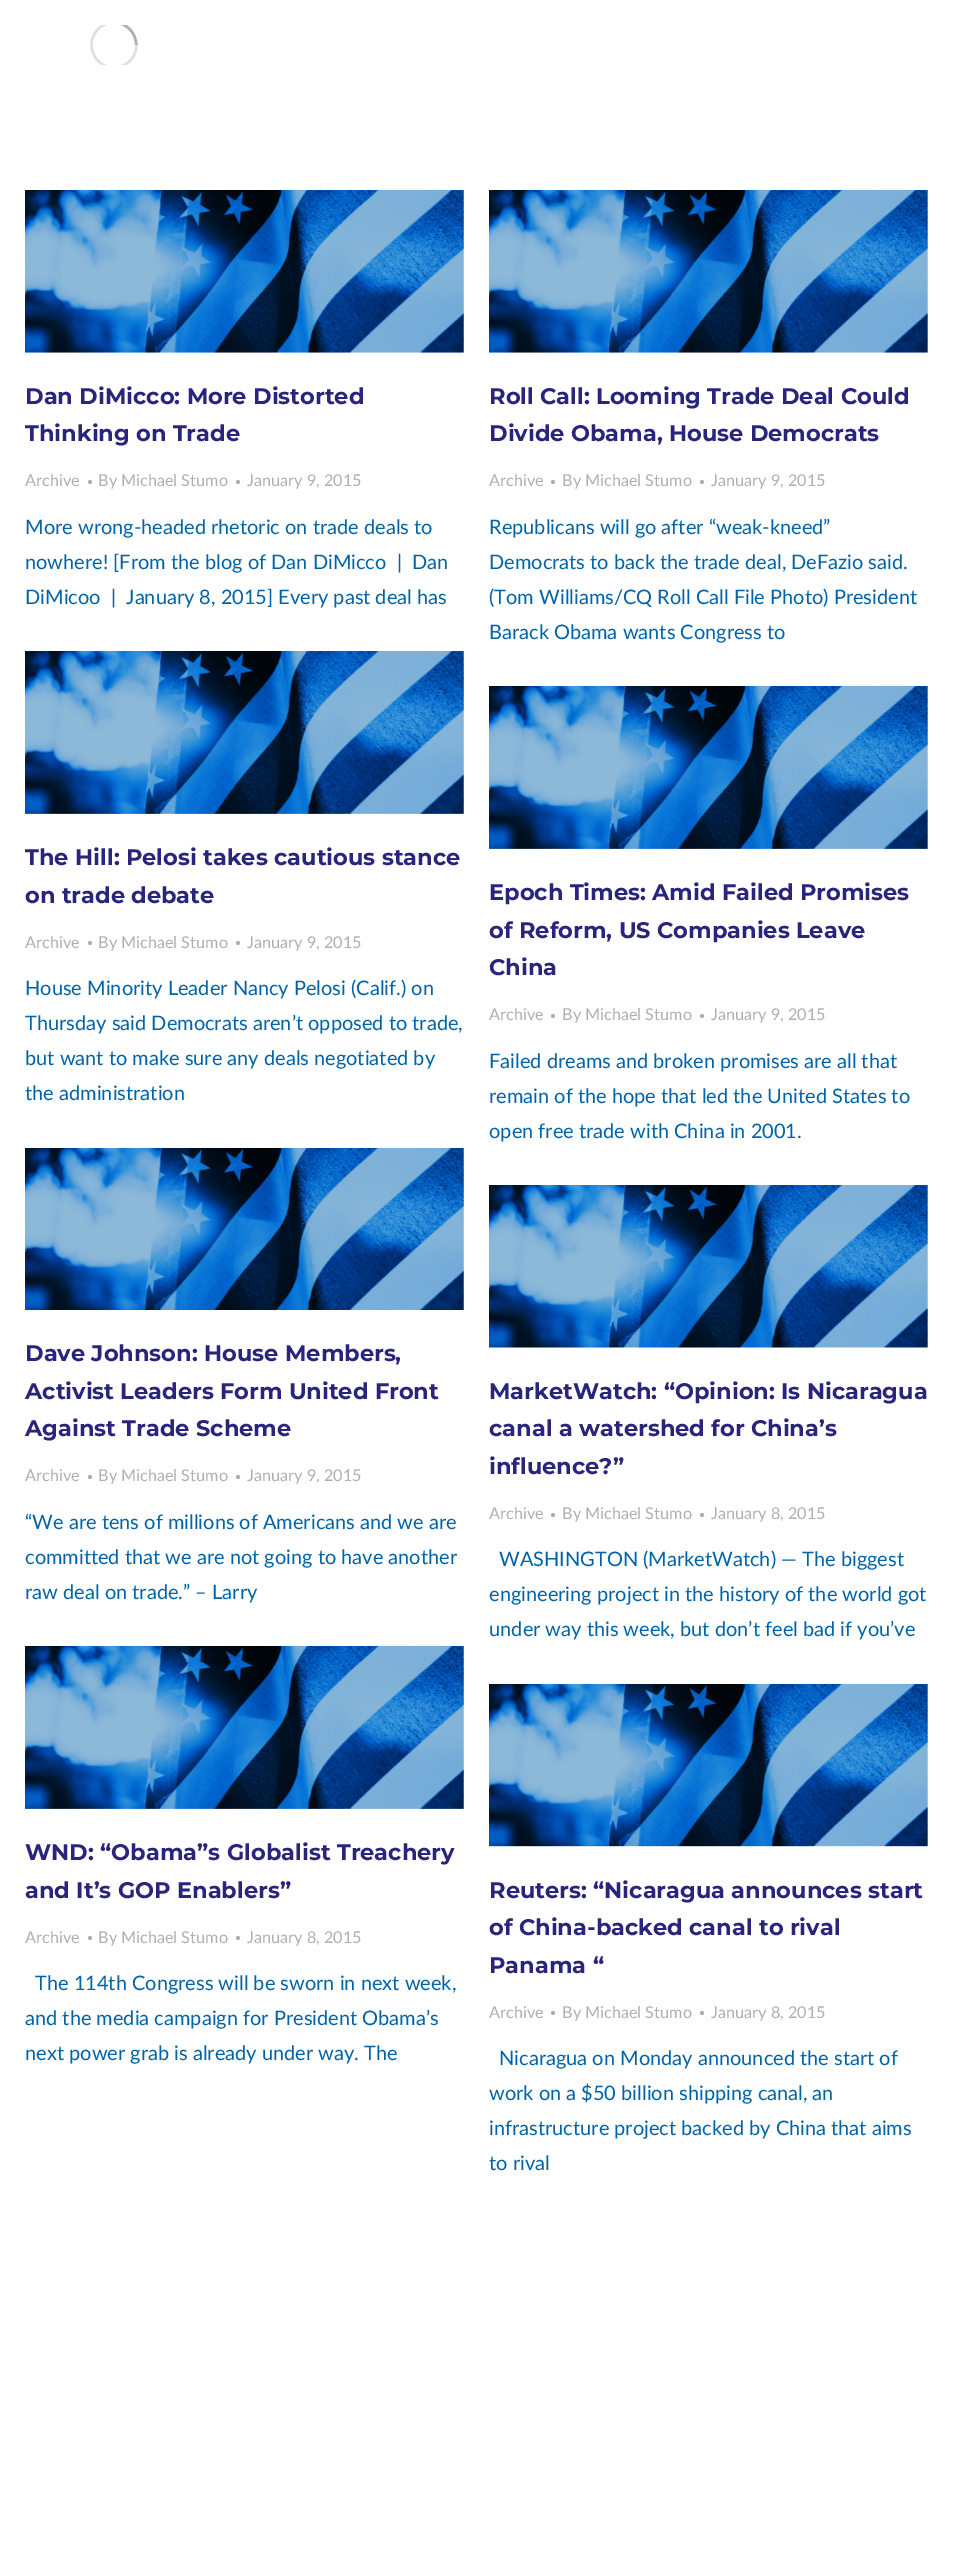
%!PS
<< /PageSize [953 2556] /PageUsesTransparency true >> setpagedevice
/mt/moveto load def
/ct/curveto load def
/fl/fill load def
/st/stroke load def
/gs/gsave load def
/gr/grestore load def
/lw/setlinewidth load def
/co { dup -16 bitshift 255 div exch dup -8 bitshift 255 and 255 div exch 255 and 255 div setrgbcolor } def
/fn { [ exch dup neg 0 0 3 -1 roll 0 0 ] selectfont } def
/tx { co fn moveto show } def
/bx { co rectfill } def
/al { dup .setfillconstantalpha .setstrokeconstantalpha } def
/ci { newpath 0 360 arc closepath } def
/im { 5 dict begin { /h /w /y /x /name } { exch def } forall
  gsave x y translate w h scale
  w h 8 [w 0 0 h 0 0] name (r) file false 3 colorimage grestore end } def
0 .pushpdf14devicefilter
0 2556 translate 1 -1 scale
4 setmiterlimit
0 0 953 2556 16#FFFFFF bx
gs
90 25 48 40 rectclip
16#E0E0E0 co
2.5 lw
114 45 22.5 ci st
0.25 al
16#1E1E1E co
136 45 mt 136 32.5 126 22.5 114 22.5 ct st
gr
(media/1.raw) 25 190 439 163 im
16#ADAFB3 co
90 482 2 ci fl
238 482 2 ci fl
(media/2.raw) 489 190 439 163 im
553 482 2 ci fl
702 482 2 ci fl
(media/3.raw) 25 651 439 163 im
90 943 2 ci fl
238 943 2 ci fl
(media/4.raw) 489 686 439 163 im
553 1016 2 ci fl
702 1016 2 ci fl
(media/5.raw) 25 1148 439 162 im
90 1477 2 ci fl
238 1477 2 ci fl
(media/6.raw) 489 1185 439 163 im
553 1515 2 ci fl
702 1515 2 ci fl
(media/3.raw) 25 1646 439 163 im
90 1938 2 ci fl
238 1938 2 ci fl
(media/7.raw) 489 1684 439 163 im
553 2013 2 ci fl
702 2013 2 ci fl
(Dan DiMicco: More Distorted) 25 404 /Montserrat-Bold 22.5 16#29257C tx
(Thinking on Trade) 25 441 /Montserrat-Bold 22.5 16#29257C tx
(Archive) 25 486 /Lato-Regular 16.25 16#ADAFB3 tx
(By Michael Stumo) 98 486 /Lato-Regular 16.25 16#ADAFB3 tx
(January 9, 2015) 247 486 /Lato-Regular 16.25 16#ADAFB3 tx
(More wrong-headed rhetoric on trade deals to) 25 534 /Lato-Regular 20 16#0063A8 tx
(nowhere! [From the blog of Dan DiMicco  |  Dan) 25 569 /Lato-Regular 20 16#0063A8 tx
(DiMicoo  |  January 8, 2015] Every past deal has) 25 604 /Lato-Regular 20 16#0063A8 tx
(Roll Call: Looming Trade Deal Could) 489 404 /Montserrat-Bold 22.5 16#29257C tx
(Divide Obama, House Democrats) 489 441 /Montserrat-Bold 22.5 16#29257C tx
(Archive) 489 486 /Lato-Regular 16.25 16#ADAFB3 tx
(By Michael Stumo) 562 486 /Lato-Regular 16.25 16#ADAFB3 tx
(January 9, 2015) 711 486 /Lato-Regular 16.25 16#ADAFB3 tx
(Republicans will go after “weak-kneed”) 489 534 /Lato-Regular 20 16#0063A8 tx
(Democrats to back the trade deal, DeFazio said.) 489 569 /Lato-Regular 20 16#0063A8 tx
(\(Tom Williams/CQ Roll Call File Photo\) President) 489 604 /Lato-Regular 20 16#0063A8 tx
(Barack Obama wants Congress to) 489 639 /Lato-Regular 20 16#0063A8 tx
(The Hill: Pelosi takes cautious stance) 25 865 /Montserrat-Bold 22.5 16#29257C tx
(on trade debate) 25 903 /Montserrat-Bold 22.5 16#29257C tx
(Archive) 25 948 /Lato-Regular 16.25 16#ADAFB3 tx
(By Michael Stumo) 98 948 /Lato-Regular 16.25 16#ADAFB3 tx
(January 9, 2015) 247 948 /Lato-Regular 16.25 16#ADAFB3 tx
(House Minority Leader Nancy Pelosi \(Calif.\) on) 25 995 /Lato-Regular 20 16#0063A8 tx
(Thursday said Democrats aren’t opposed to trade,) 25 1030 /Lato-Regular 20 16#0063A8 tx
(but want to make sure any deals negotiated by) 25 1065 /Lato-Regular 20 16#0063A8 tx
(the administration) 25 1100 /Lato-Regular 20 16#0063A8 tx
(Epoch Times: Amid Failed Promises) 489 900 /Montserrat-Bold 22.5 16#29257C tx
(of Reform, US Companies Leave) 489 938 /Montserrat-Bold 22.5 16#29257C tx
(China) 489 975 /Montserrat-Bold 22.5 16#29257C tx
(Archive) 489 1020 /Lato-Regular 16.25 16#ADAFB3 tx
(By Michael Stumo) 562 1020 /Lato-Regular 16.25 16#ADAFB3 tx
(January 9, 2015) 711 1020 /Lato-Regular 16.25 16#ADAFB3 tx
(Failed dreams and broken promises are all that) 489 1068 /Lato-Regular 20 16#0063A8 tx
(remain of the hope that led the United States to) 489 1103 /Lato-Regular 20 16#0063A8 tx
(open free trade with China in 2001.) 489 1138 /Lato-Regular 20 16#0063A8 tx
(Dave Johnson: House Members,) 25 1361 /Montserrat-Bold 22.5 16#29257C tx
(Activist Leaders Form United Front) 25 1399 /Montserrat-Bold 22.5 16#29257C tx
(Against Trade Scheme) 25 1436 /Montserrat-Bold 22.5 16#29257C tx
(Archive) 25 1481 /Lato-Regular 16.25 16#ADAFB3 tx
(By Michael Stumo) 98 1481 /Lato-Regular 16.25 16#ADAFB3 tx
(January 9, 2015) 247 1481 /Lato-Regular 16.25 16#ADAFB3 tx
(“We are tens of millions of Americans and we are) 25 1529 /Lato-Regular 20 16#0063A8 tx
(committed that we are not going to have another) 25 1564 /Lato-Regular 20 16#0063A8 tx
(raw deal on trade.” – Larry) 25 1599 /Lato-Regular 20 16#0063A8 tx
(MarketWatch: “Opinion: Is Nicaragua) 489 1399 /Montserrat-Bold 22.5 16#29257C tx
(canal a watershed for China’s) 489 1436 /Montserrat-Bold 22.5 16#29257C tx
(influence?”) 489 1474 /Montserrat-Bold 22.5 16#29257C tx
(Archive) 489 1519 /Lato-Regular 16.25 16#ADAFB3 tx
(By Michael Stumo) 562 1519 /Lato-Regular 16.25 16#ADAFB3 tx
(January 8, 2015) 711 1519 /Lato-Regular 16.25 16#ADAFB3 tx
(WASHINGTON \(MarketWatch\) — The biggest) 499 1566 /Lato-Regular 20 16#0063A8 tx
(engineering project in the history of the world got) 489 1601 /Lato-Regular 20 16#0063A8 tx
(under way this week, but don’t feel bad if you’ve) 489 1636 /Lato-Regular 20 16#0063A8 tx
(WND: “Obama”s Globalist Treachery) 25 1860 /Montserrat-Bold 22.5 16#29257C tx
(and It’s GOP Enablers”) 25 1898 /Montserrat-Bold 22.5 16#29257C tx
(Archive) 25 1943 /Lato-Regular 16.25 16#ADAFB3 tx
(By Michael Stumo) 98 1943 /Lato-Regular 16.25 16#ADAFB3 tx
(January 8, 2015) 247 1943 /Lato-Regular 16.25 16#ADAFB3 tx
(The 114th Congress will be sworn in next week,) 35 1990 /Lato-Regular 20 16#0063A8 tx
(and the media campaign for President Obama’s) 25 2025 /Lato-Regular 20 16#0063A8 tx
(next power grab is already under way. The) 25 2060 /Lato-Regular 20 16#0063A8 tx
(Reuters: “Nicaragua announces start) 489 1898 /Montserrat-Bold 22.5 16#29257C tx
(of China-backed canal to rival) 489 1935 /Montserrat-Bold 22.5 16#29257C tx
(Panama “) 489 1973 /Montserrat-Bold 22.5 16#29257C tx
(Archive) 489 2018 /Lato-Regular 16.25 16#ADAFB3 tx
(By Michael Stumo) 562 2018 /Lato-Regular 16.25 16#ADAFB3 tx
(January 8, 2015) 711 2018 /Lato-Regular 16.25 16#ADAFB3 tx
(Nicaragua on Monday announced the start of) 499 2065 /Lato-Regular 20 16#0063A8 tx
(work on a $50 billion shipping canal, an) 489 2100 /Lato-Regular 20 16#0063A8 tx
(infrastructure project backed by China that aims) 489 2135 /Lato-Regular 20 16#0063A8 tx
(to rival) 489 2170 /Lato-Regular 20 16#0063A8 tx
.poppdf14devicefilter showpage
